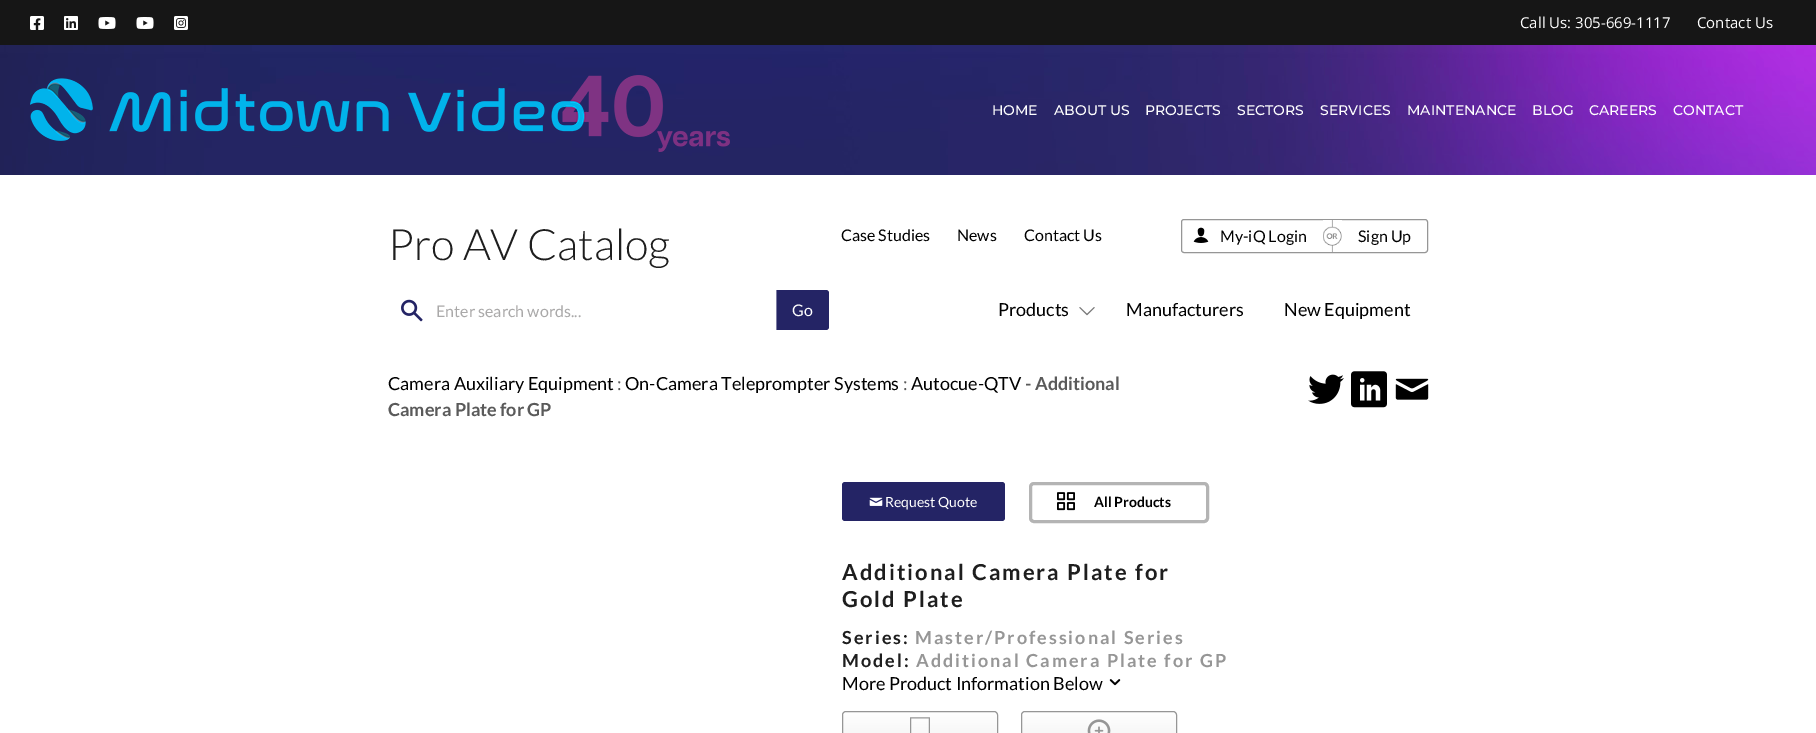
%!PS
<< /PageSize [1816 733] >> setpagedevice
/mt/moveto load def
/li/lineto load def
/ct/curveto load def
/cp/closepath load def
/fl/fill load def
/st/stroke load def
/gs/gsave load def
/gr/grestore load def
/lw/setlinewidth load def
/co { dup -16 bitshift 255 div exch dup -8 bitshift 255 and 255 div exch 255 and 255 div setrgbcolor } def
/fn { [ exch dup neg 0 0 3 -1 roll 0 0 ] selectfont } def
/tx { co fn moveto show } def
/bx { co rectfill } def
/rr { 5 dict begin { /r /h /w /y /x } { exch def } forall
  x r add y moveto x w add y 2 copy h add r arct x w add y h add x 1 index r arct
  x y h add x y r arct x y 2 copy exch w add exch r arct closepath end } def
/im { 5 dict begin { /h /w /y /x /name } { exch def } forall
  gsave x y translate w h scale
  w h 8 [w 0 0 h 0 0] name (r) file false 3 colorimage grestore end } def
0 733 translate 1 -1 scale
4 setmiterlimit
0 0 1816 733 16#FFFFFF bx
0 0 1816 45 16#161616 bx
(media/1.raw) 30 16 14 14 im
(media/2.raw) 64 16 14 14 im
(media/3.raw) 98 17 18 12 im
(media/3.raw) 136 17 18 12 im
(media/4.raw) 174 16 14 14 im
(media/5.raw) 0 45 1816 130 im
(media/6.raw) 30 75 700 77 im
16#969696 co
1181.5 219.5 246 33 2.5 rr st
(media/7.raw) 1193 227 16 16 im
(media/8.raw) 1323 220 19 32 im
(media/9.raw) 401 299 22 23 im
16#242465 co
776 290 mt 826 290 li 827.5 290 829 291.5 829 293 ct 829 327 li 829 328.5 827.5 330 826 330 ct 776 330 li cp fl
776 290 1 40 16#7C7CA3 bx
(media/10.raw) 1079 307 16 9 im
(media/11.raw) 1308 374 36 30 im
(media/12.raw) 1351 371 36 37 im
(media/13.raw) 1395 378 34 22 im
16#242465 co
842 482 163 39 3 rr fl
(media/14.raw) 869 497 14 9 im
16#B4B4B4 co
3 lw
1030.5 483.5 177 38 3.5 rr st
(media/15.raw) 1057 492 18 19 im
(media/16.raw) 1109 679 12 7 im
gs
842 711 156 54 4 rr clip newpath
gs 842 712 mt 998 712 li 998 733 li 842 733 li cp clip newpath
<< /ShadingType 2 /ColorSpace /DeviceRGB /Coords [920 712 920 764] /Extend [true true] /Function << /FunctionType 2 /Domain [0 1] /C0 [1 1 1] /C1 [.925 .925 .925] /N 1 >> >> shfill gr
gr
16#969696 co
1 lw
842.5 711.5 155 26 3.5 rr st
(media/17.raw) 910 717 20 16 im
gs
1021 711 156 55 4 rr clip newpath
gs 1021 712 mt 1177 712 li 1177 733 li 1021 733 li cp clip newpath
<< /ShadingType 2 /ColorSpace /DeviceRGB /Coords [1099 712 1099 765] /Extend [true true] /Function << /FunctionType 2 /Domain [0 1] /C0 [1 1 1] /C1 [.925 .925 .925] /N 1 >> >> shfill gr
gr
1021.5 711.5 155 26 3.5 rr st
(media/18.raw) 1087 719 24 14 im
(Call Us: 305-669-1117) 1520 28 /OpenSans-Regular 15 16#FFFFFF tx
(Contact Us) 1697 28 /OpenSans-Regular 15 16#FFFFFF tx
(HOME) 992 115 /Montserrat-Medium 14 16#FFFFFF tx
(ABOUT US) 1054 115 /Montserrat-Medium 14 16#FFFFFF tx
(PROJECTS) 1145 115 /Montserrat-Medium 14 16#FFFFFF tx
(SECTORS) 1237 115 /Montserrat-Medium 14 16#FFFFFF tx
(SERVICES) 1320 115 /Montserrat-Medium 14 16#FFFFFF tx
(MAINTENANCE) 1407 115 /Montserrat-Medium 14 16#FFFFFF tx
(BLOG) 1532 115 /Montserrat-Medium 14 16#FFFFFF tx
(CAREERS) 1589 115 /Montserrat-Medium 14 16#FFFFFF tx
(CONTACT) 1673 115 /Montserrat-Medium 14 16#FFFFFF tx
(Pro AV Catalog) 388 260 /Lato-Light 43.25 16#1E1E1E tx
(Case Studies) 841 241 /Lato-Regular 16 16#000000 tx
(News) 957 241 /Lato-Regular 16 16#000000 tx
(Contact Us) 1024 241 /Lato-Regular 16 16#000000 tx
(My-iQ Login) 1220 242 /Lato-Regular 16 16#000000 tx
(Sign Up) 1358 242 /Lato-Regular 16 16#000000 tx
(Enter search words...) 436 317 /Lato-Regular 16 16#AAA9A9 tx
(Go) 792 316 /Lato-Regular 16 16#FFFFFF tx
(Products) 998 316 /Lato-Regular 18 16#000000 tx
(Manufacturers) 1126 316 /Lato-Regular 18 16#000000 tx
(New Equipment) 1284 316 /Lato-Regular 18 16#000000 tx
(Camera Auxiliary Equipment) 388 390 /Lato-Regular 18 16#000000 tx
(:) 617 390 /Lato-Regular 18 16#5A5A5A tx
(On-Camera Teleprompter Systems) 625 390 /Lato-Regular 18 16#000000 tx
(:) 903 390 /Lato-Regular 18 16#5A5A5A tx
(Autocue-QTV) 911 390 /Lato-Regular 18 16#000000 tx
(- Additional) 1025 390 /Lato-Bold 18 16#5A5A5A tx
(Camera Plate for GP) 388 416 /Lato-Bold 18 16#5A5A5A tx
(Request Quote) 885 507 /Lato-Regular 14 16#FFFFFF tx
(All Products) 1094 507 /Lato-Bold 14 16#000000 tx
/Lato-Bold 22 fn
16#1E1E1E co
842 580 mt 2 0 (Additional Camera Plate for) ashow
842 607 mt 2 0 (Gold Plate) ashow
/Lato-Bold 18 fn
842 644 mt 2 0 (Series:) ashow
16#969696 co
915 644 mt 2 0 (Master/Professional Series) ashow
16#1E1E1E co
842 667 mt 2 0 (Model:) ashow
16#969696 co
916 667 mt 2 0 (Additional Camera Plate for GP) ashow
(More Product Information Below) 842 690 /Lato-Regular 18 16#000000 tx
showpage
